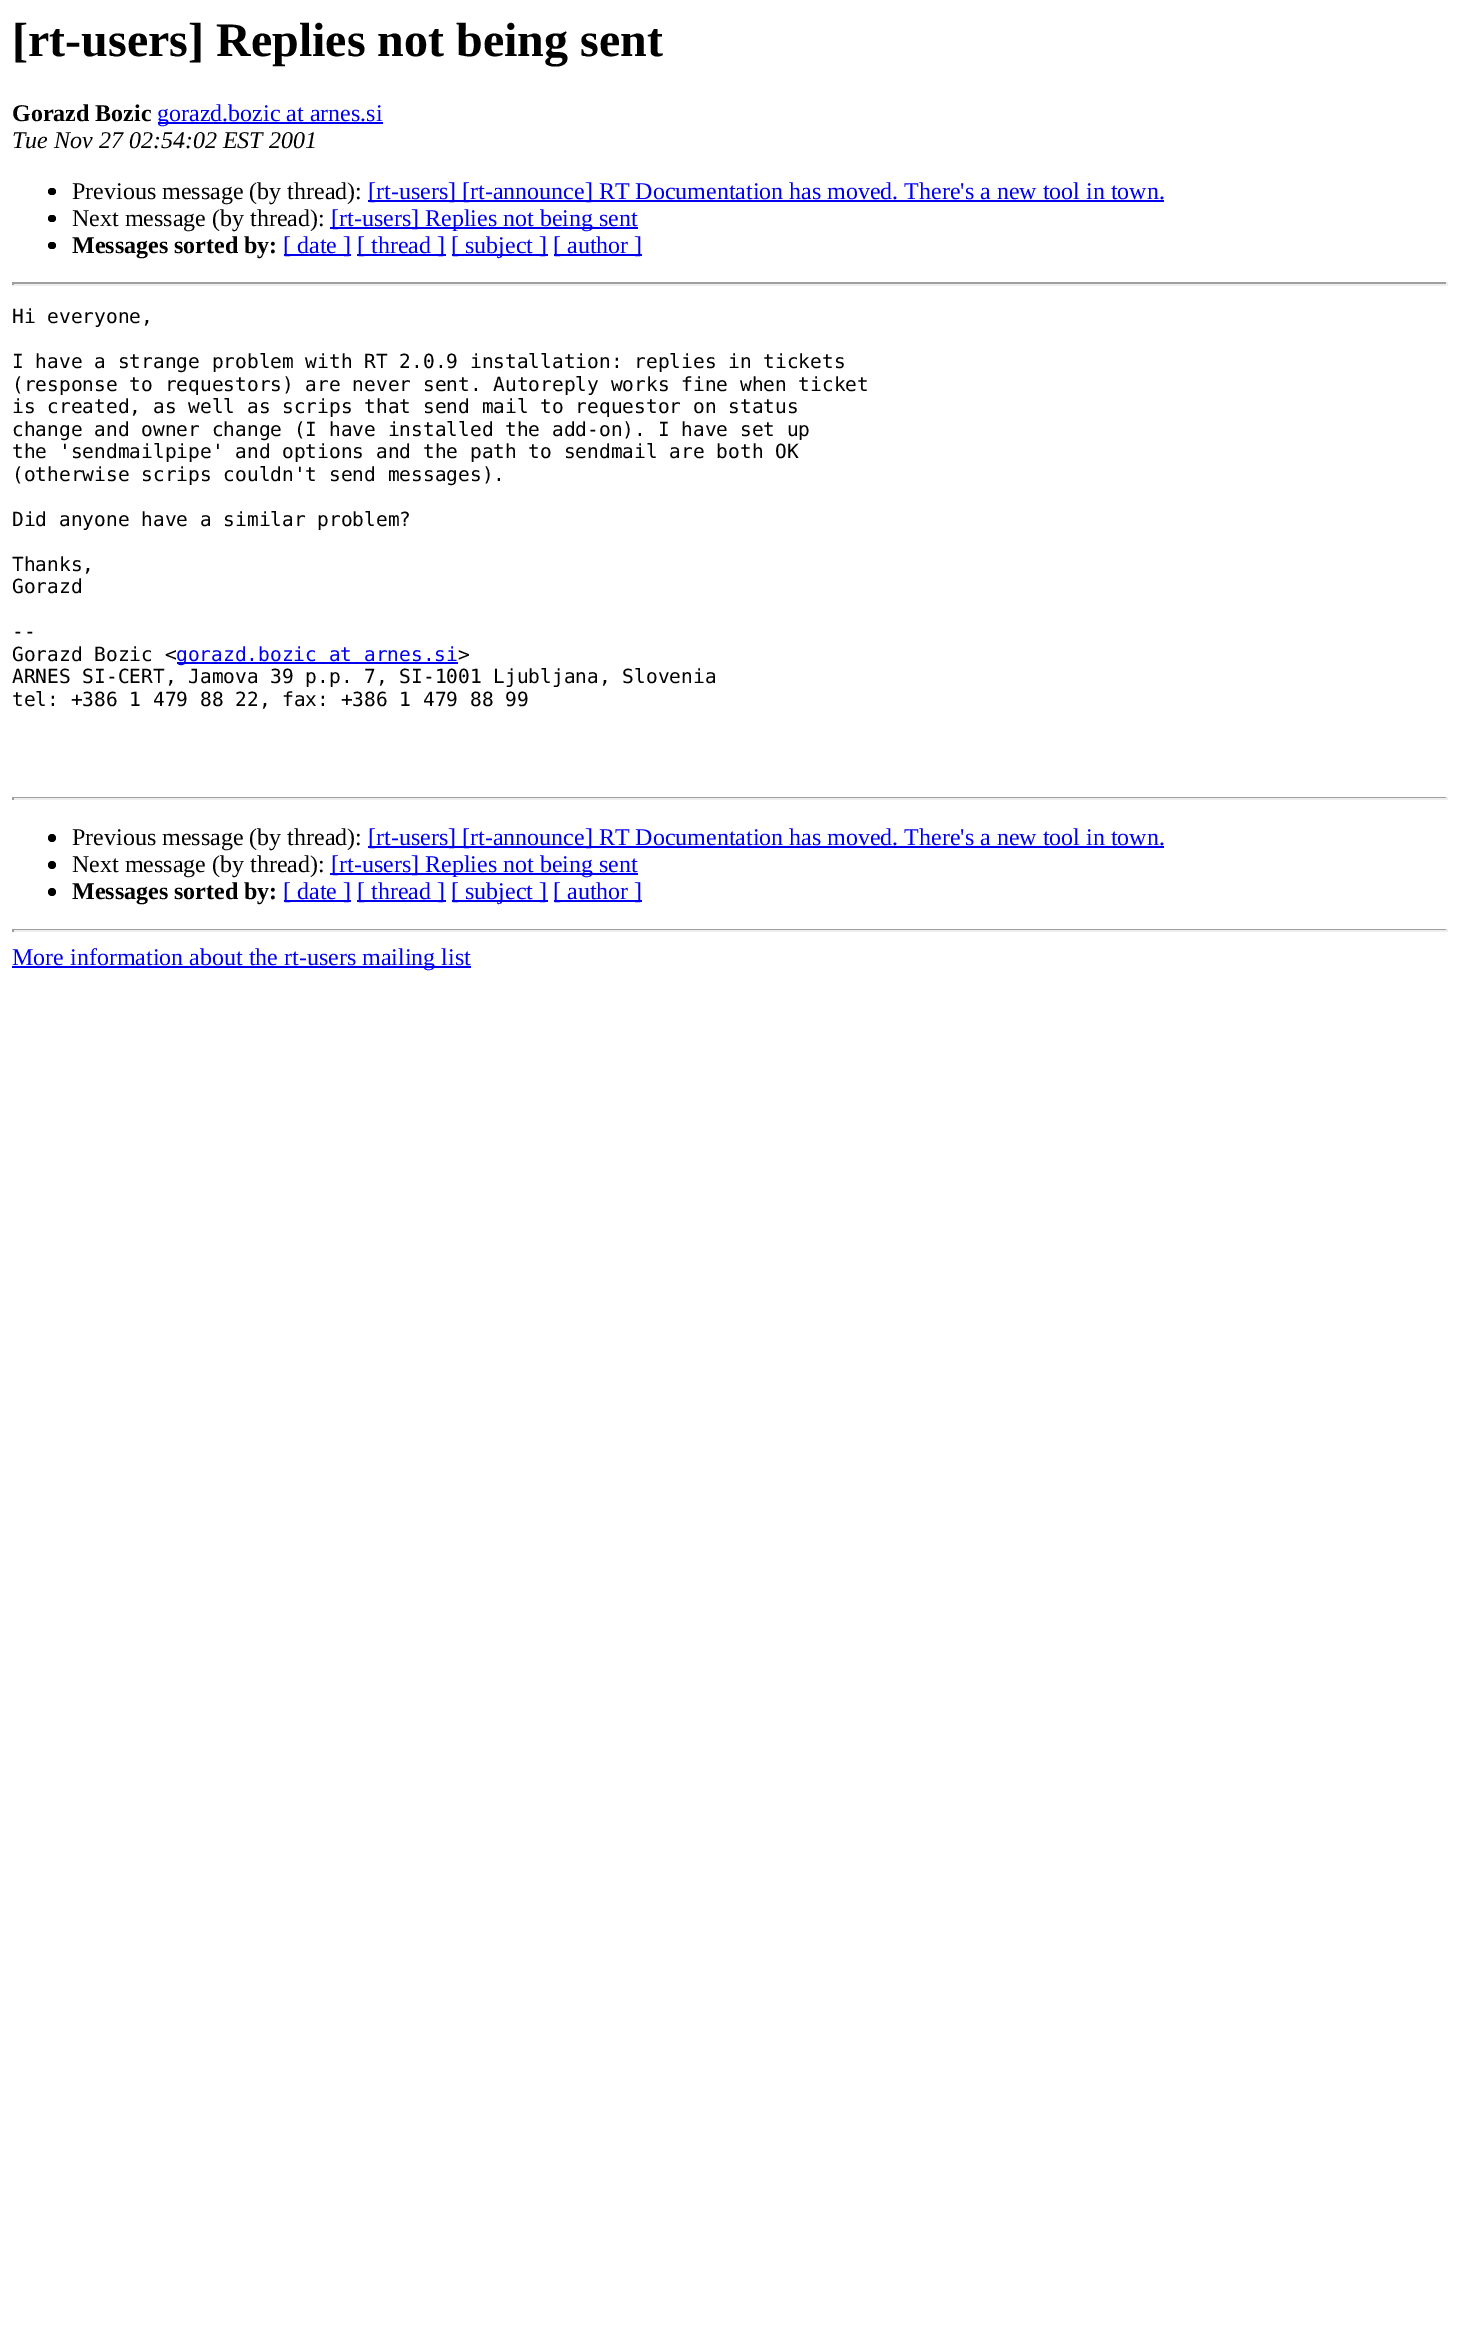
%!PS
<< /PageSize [1459 2339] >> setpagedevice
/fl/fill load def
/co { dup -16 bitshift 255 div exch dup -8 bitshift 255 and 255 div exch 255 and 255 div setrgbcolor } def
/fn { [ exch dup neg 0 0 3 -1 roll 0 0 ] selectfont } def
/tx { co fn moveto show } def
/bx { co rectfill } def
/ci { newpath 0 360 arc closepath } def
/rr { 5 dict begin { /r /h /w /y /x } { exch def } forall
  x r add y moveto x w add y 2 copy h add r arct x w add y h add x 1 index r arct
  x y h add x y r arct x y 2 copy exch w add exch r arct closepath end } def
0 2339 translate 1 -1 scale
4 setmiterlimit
0 0 1459 2339 16#FFFFFF bx
158 122 225 2 16#0000EE bx
16#000000 co
48 188 8 7 3.5 rr fl
368 200 796 2 16#0000EE bx
16#000000 co
48 215 8 7 3.5 rr fl
330 227 308 2 16#0000EE bx
16#000000 co
48 242 8 7 3.5 rr fl
284 254 67 2 16#0000EE bx
357 254 89 2 16#0000EE bx
452 254 96 2 16#0000EE bx
554 254 88 2 16#0000EE bx
12 282 1436 2 16#9F9F9F bx
1446 282 2 3 16#EEEEEE bx
12 284 1436 2 16#EEEEEE bx
12 282 2 3 16#9F9F9F bx
177 662 281 2 16#0000EE bx
12 797 1436 1 16#9F9F9F bx
1446 797 2 3 16#EEEEEE bx
12 798 1436 2 16#EEEEEE bx
12 797 2 3 16#9F9F9F bx
16#000000 co
52 838 4 ci fl
368 846 796 2 16#0000EE bx
16#000000 co
52 865 4 ci fl
330 873 308 2 16#0000EE bx
16#000000 co
52 892 4 ci fl
284 900 67 2 16#0000EE bx
357 900 89 2 16#0000EE bx
452 900 96 2 16#0000EE bx
554 900 88 2 16#0000EE bx
12 929 1436 1 16#9F9F9F bx
1446 929 2 3 16#EEEEEE bx
12 930 1436 2 16#EEEEEE bx
12 929 2 3 16#9F9F9F bx
12 966 459 2 16#0000EE bx
([rt-users] Replies not being sent) 12 56 /LiberationSerif-Bold 48 16#000000 tx
(Gorazd Bozic) 12 121 /LiberationSerif-Bold 24 16#000000 tx
(gorazd.bozic at arnes.si) 157 121 /LiberationSerif-Regular 24 16#0000EE tx
(Tue Nov 27 02:54:02 EST 2001) 12 148 /LiberationSerif-Italic 24 16#000000 tx
(Previous message \(by thread\):) 72 199 /LiberationSerif-Regular 24 16#000000 tx
([rt-users] [rt-announce] RT Documentation has moved. There's a new tool in town.) 368 199 /LiberationSerif-Regular 24 16#0000EE tx
(Next message \(by thread\):) 72 226 /LiberationSerif-Regular 24 16#000000 tx
([rt-users] Replies not being sent) 331 226 /LiberationSerif-Regular 24 16#0000EE tx
(Messages sorted by:) 72 253 /LiberationSerif-Bold 24 16#000000 tx
([ date ]) 283 253 /LiberationSerif-Regular 24 16#0000EE tx
([ thread ]) 357 253 /LiberationSerif-Regular 24 16#0000EE tx
([ subject ]) 451 253 /LiberationSerif-Regular 24 16#0000EE tx
([ author ]) 553 253 /LiberationSerif-Regular 24 16#0000EE tx
(Hi everyone,) 12 323 /DejaVuSansMono-Regular 19.5 16#000000 tx
(I have a strange problem with RT 2.0.9 installation: replies in tickets) 12 368 /DejaVuSansMono-Regular 19.5 16#000000 tx
(\(response to requestors\) are never sent. Autoreply works fine when ticket) 12 391 /DejaVuSansMono-Regular 19.5 16#000000 tx
(is created, as well as scrips that send mail to requestor on status) 12 413 /DejaVuSansMono-Regular 19.5 16#000000 tx
(change and owner change \(I have installed the add-on\). I have set up) 12 436 /DejaVuSansMono-Regular 19.5 16#000000 tx
(the 'sendmailpipe' and options and the path to sendmail are both OK) 12 458 /DejaVuSansMono-Regular 19.5 16#000000 tx
(\(otherwise scrips couldn't send messages\).) 12 481 /DejaVuSansMono-Regular 19.5 16#000000 tx
(Did anyone have a similar problem?) 12 526 /DejaVuSansMono-Regular 19.5 16#000000 tx
(Thanks,) 12 571 /DejaVuSansMono-Regular 19.5 16#000000 tx
(Gorazd) 12 593 /DejaVuSansMono-Regular 19.5 16#000000 tx
(--) 12 638 /DejaVuSansMono-Regular 19.5 16#000000 tx
(Gorazd Bozic <) 12 661 /DejaVuSansMono-Regular 19.5 16#000000 tx
(gorazd.bozic at arnes.si) 176 661 /DejaVuSansMono-Regular 19.5 16#0000EE tx
(>) 458 661 /DejaVuSansMono-Regular 19.5 16#000000 tx
(ARNES SI-CERT, Jamova 39 p.p. 7, SI-1001 Ljubljana, Slovenia) 12 683 /DejaVuSansMono-Regular 19.5 16#000000 tx
(tel: +386 1 479 88 22, fax: +386 1 479 88 99) 12 706 /DejaVuSansMono-Regular 19.5 16#000000 tx
(Previous message \(by thread\):) 72 845 /LiberationSerif-Regular 24 16#000000 tx
([rt-users] [rt-announce] RT Documentation has moved. There's a new tool in town.) 368 845 /LiberationSerif-Regular 24 16#0000EE tx
(Next message \(by thread\):) 72 872 /LiberationSerif-Regular 24 16#000000 tx
([rt-users] Replies not being sent) 331 872 /LiberationSerif-Regular 24 16#0000EE tx
(Messages sorted by:) 72 899 /LiberationSerif-Bold 24 16#000000 tx
([ date ]) 283 899 /LiberationSerif-Regular 24 16#0000EE tx
([ thread ]) 357 899 /LiberationSerif-Regular 24 16#0000EE tx
([ subject ]) 451 899 /LiberationSerif-Regular 24 16#0000EE tx
([ author ]) 553 899 /LiberationSerif-Regular 24 16#0000EE tx
(More information about the rt-users mailing list) 12 965 /LiberationSerif-Regular 24 16#0000EE tx
showpage
